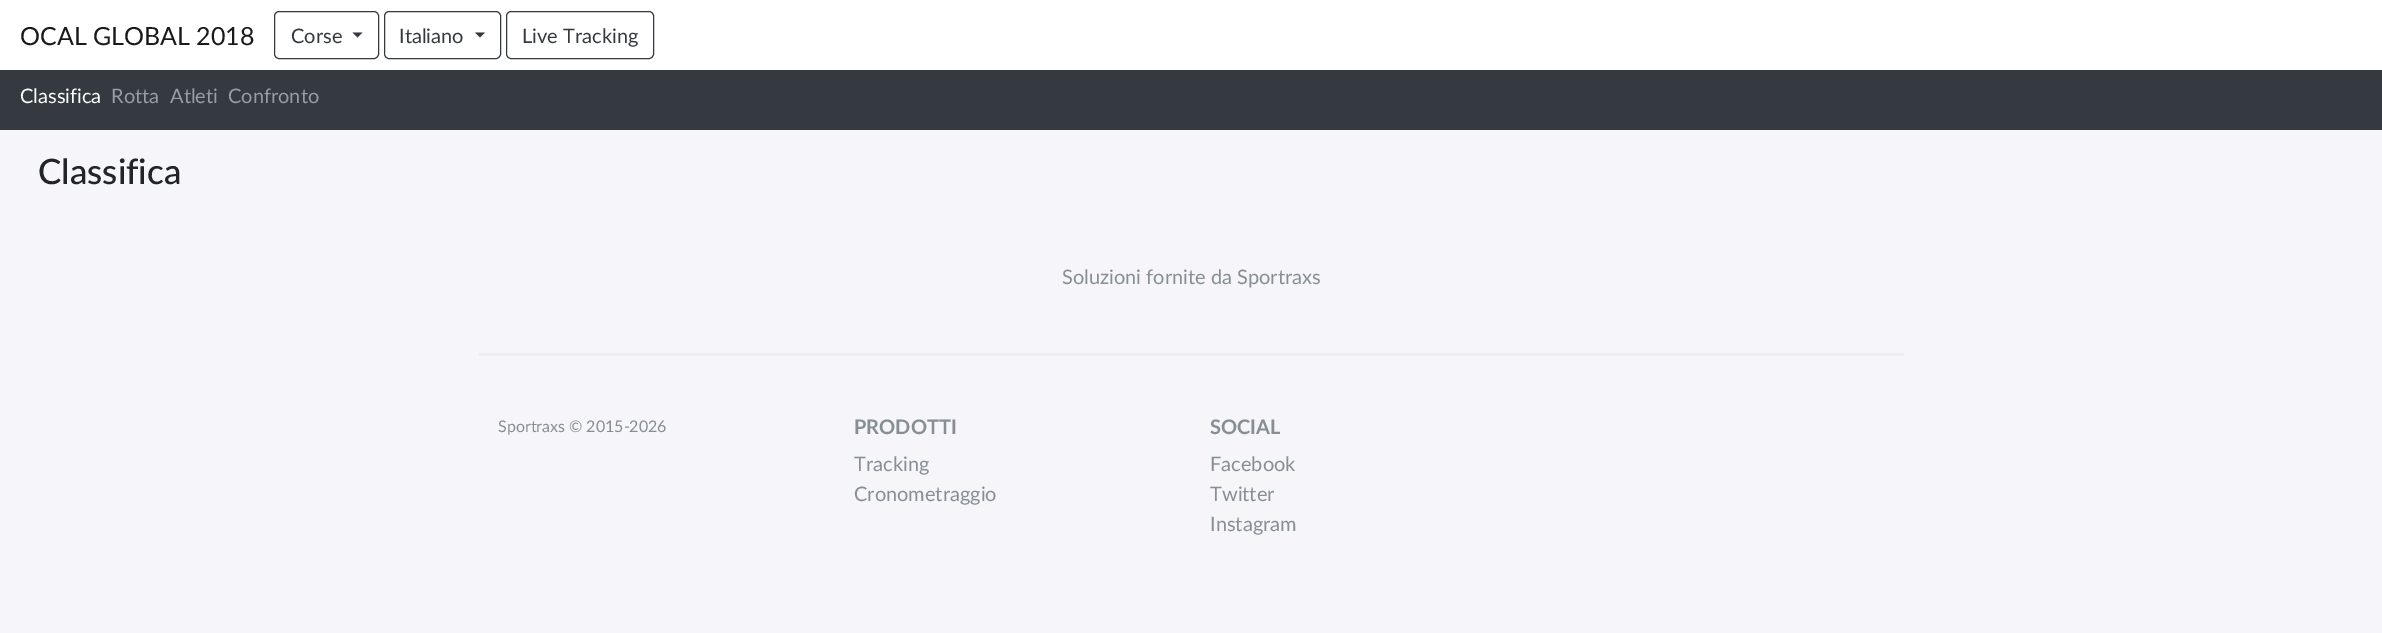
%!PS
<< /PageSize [2382 633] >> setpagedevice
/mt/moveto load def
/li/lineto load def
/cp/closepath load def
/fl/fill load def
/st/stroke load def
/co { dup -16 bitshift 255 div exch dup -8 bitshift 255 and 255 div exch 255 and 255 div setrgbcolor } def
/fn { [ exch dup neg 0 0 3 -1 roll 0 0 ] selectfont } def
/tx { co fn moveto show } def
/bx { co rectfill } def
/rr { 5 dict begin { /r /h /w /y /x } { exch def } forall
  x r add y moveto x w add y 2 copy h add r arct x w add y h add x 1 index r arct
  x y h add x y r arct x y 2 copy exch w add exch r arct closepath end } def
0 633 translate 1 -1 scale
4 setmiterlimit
0 0 2382 633 16#F5F5FA bx
0 0 2382 70 16#FFFFFF bx
16#343A40 co
274.5 11.5 104 47 4.5 rr st
352.5 32.5 mt 362.5 32.5 li 357.5 37.5 li cp fl
384.5 11.5 116 47 4.5 rr st
475 32.5 mt 485 32.5 li 480 37.5 li cp fl
506.5 11.5 147 47 4.5 rr st
0 70 2382 60 16#343A40 bx
479 353 1425 3 16#ECEEF3 bx
(OCAL GLOBAL 2018) 20 45 /Lato-Regular 25 16#1A1A1A tx
(Corse) 291 43 /Lato-Regular 20 16#343A40 tx
(Italiano) 399 43 /Lato-Regular 20 16#343A40 tx
(Live Tracking) 522 43 /Lato-Regular 20 16#343A40 tx
(Classifica) 20 103 /Lato-Regular 20 16#FFFFFF tx
(Rotta) 111 103 /Lato-Regular 20 16#9A9DA0 tx
(Atleti) 170 103 /Lato-Regular 20 16#9A9DA0 tx
(Confronto) 228 103 /Lato-Regular 20 16#9A9DA0 tx
(Classifica) 38 184 /Lato-Medium 35 16#212529 tx
(Soluzioni fornite da Sportraxs) 1062 284 /Lato-Regular 20 16#868E96 tx
(Sportraxs © 2015-2026) 498 432 /Lato-Regular 16 16#868E96 tx
(PRODOTTI) 854 434 /Lato-Bold 20 16#868E96 tx
(Tracking) 854 471 /Lato-Regular 20 16#868E96 tx
(Cronometraggio) 854 501 /Lato-Regular 20 16#868E96 tx
(SOCIAL) 1210 434 /Lato-Bold 20 16#868E96 tx
(Facebook) 1210 471 /Lato-Regular 20 16#868E96 tx
(Twitter) 1210 501 /Lato-Regular 20 16#868E96 tx
(Instagram) 1210 531 /Lato-Regular 20 16#868E96 tx
showpage
